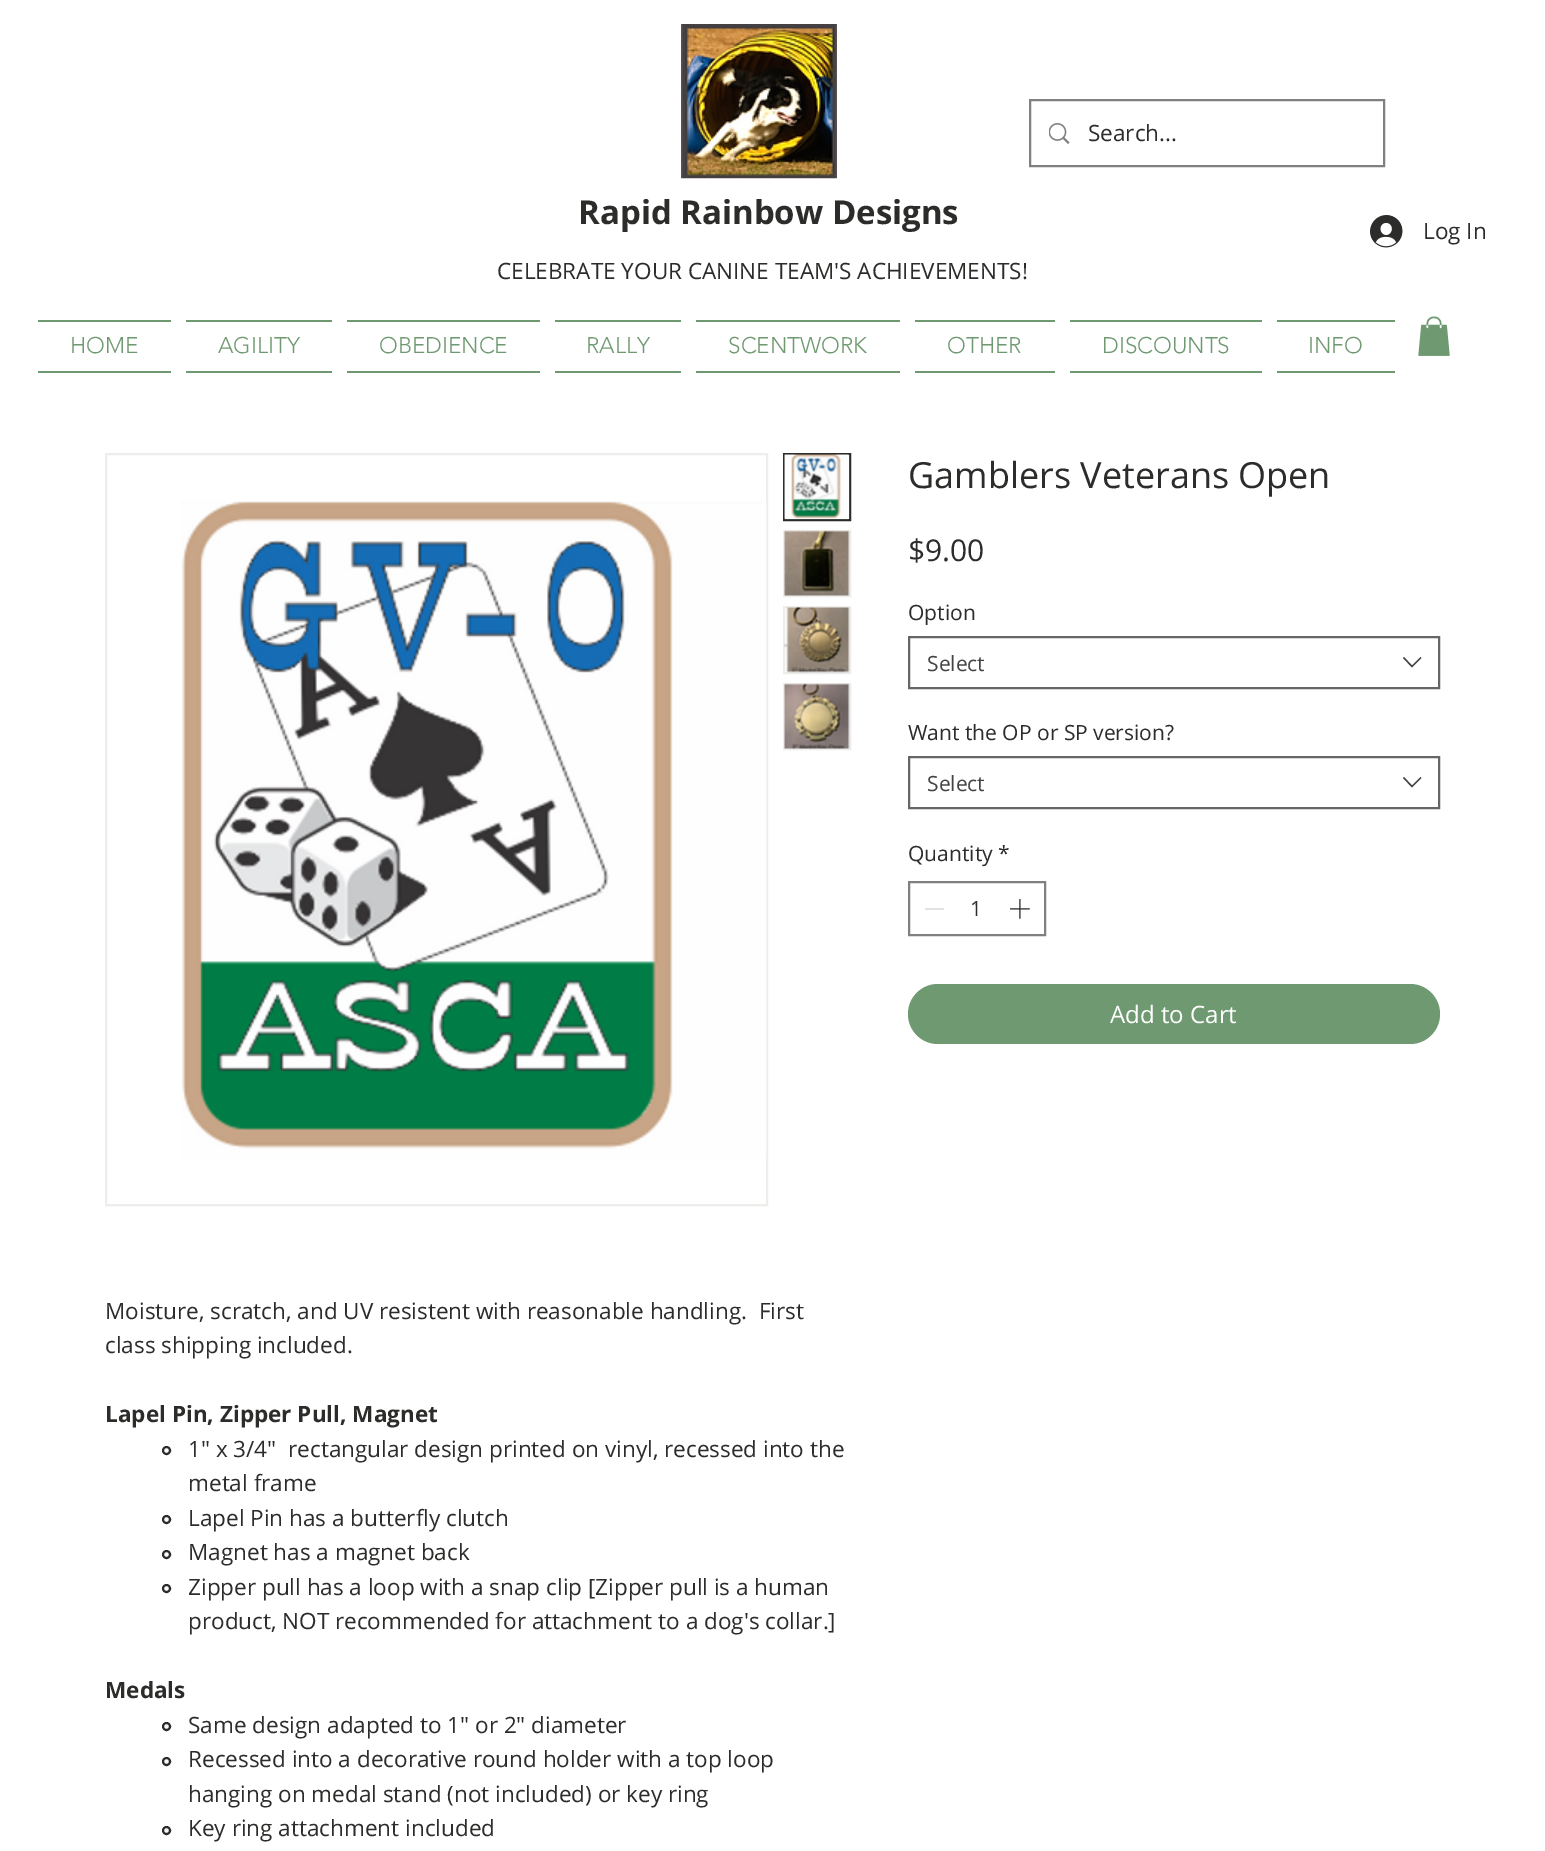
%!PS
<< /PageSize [1545 1851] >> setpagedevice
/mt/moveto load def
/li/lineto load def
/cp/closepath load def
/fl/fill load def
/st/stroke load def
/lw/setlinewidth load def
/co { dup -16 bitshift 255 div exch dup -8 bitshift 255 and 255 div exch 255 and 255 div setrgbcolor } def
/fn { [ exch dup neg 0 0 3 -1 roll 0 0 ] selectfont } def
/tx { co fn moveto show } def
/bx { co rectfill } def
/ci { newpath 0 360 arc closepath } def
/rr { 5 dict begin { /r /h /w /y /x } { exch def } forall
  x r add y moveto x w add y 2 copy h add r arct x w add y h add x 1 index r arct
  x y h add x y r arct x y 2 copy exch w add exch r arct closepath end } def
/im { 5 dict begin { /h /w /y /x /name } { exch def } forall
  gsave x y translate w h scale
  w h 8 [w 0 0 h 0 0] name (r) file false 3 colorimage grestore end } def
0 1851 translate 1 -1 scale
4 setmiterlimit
0 0 1545 1851 16#FFFFFF bx
(media/1.raw) 681 24 156 155 im
16#808080 co
2 lw
1030 100 354 66 rectstroke
(media/2.raw) 1049 123 21 21 im
(media/3.raw) 1370 215 33 33 im
38 320 133 2 16#6F9971 bx
38 371 133 2 16#6F9971 bx
186 320 146 2 16#6F9971 bx
186 371 146 2 16#6F9971 bx
347 320 193 2 16#6F9971 bx
347 371 193 2 16#6F9971 bx
555 320 126 2 16#6F9971 bx
555 371 126 2 16#6F9971 bx
696 320 204 2 16#6F9971 bx
696 371 204 2 16#6F9971 bx
915 320 140 2 16#6F9971 bx
915 371 140 2 16#6F9971 bx
1070 320 192 2 16#6F9971 bx
1070 371 192 2 16#6F9971 bx
1277 320 118 2 16#6F9971 bx
1277 371 118 2 16#6F9971 bx
(media/4.raw) 1418 316 32 40 im
16#666666 co
909 637 530 51 rectstroke
16#444444 co
1420.5 657 mt 1421.5 658 li 1412 667.5 li 1403 658 li 1404 657 li 1412 665.5 li cp eofill
16#666666 co
909 757 530 51 rectstroke
16#444444 co
1420.5 777 mt 1421.5 778 li 1412 787.5 li 1403 778 li 1404 777 li 1412 785.5 li cp eofill
16#808080 co
909 882 136 53 rectstroke
925 908 19 2 16#E3E3E3 bx
(media/5.raw) 1010 899 20 20 im
16#6F9971 co
908 984 532 60 30 rr fl
16#EDEDEC co
106 454 661 751 rectstroke
(media/6.raw) 181 501 586 658 im
16#2C2C2B co
784 454 66 66 rectstroke
(media/7.raw) 784 454 66 66 im
16#EDEDEC co
784 531 66 65 rectstroke
(media/8.raw) 784 530 66 66 im
784 607 66 66 rectstroke
(media/9.raw) 784 607 66 66 im
784 684 66 65 rectstroke
(media/10.raw) 784 683 66 66 im
16#2C2C2B co
166.5 1450.5 3.5 ci st
166.5 1519.5 3.5 ci st
166.5 1554.5 3.5 ci st
166.5 1588.5 3.5 ci st
166.5 1726.5 3.5 ci st
166.5 1761.5 3.5 ci st
166.5 1830.5 3.5 ci st
(Search...) 1088 141 /OpenSans-Regular 22.5 16#2C2C2B tx
(Rapid Rainbow Designs) 578 224 /OpenSans-Bold 33 16#2C2C2B tx
(Log In) 1423 239 /OpenSans-Regular 22.5 16#2C2C2B tx
(CELEBRATE YOUR CANINE TEAM'S ACHIEVEMENTS!) 497 279 /OpenSans-Regular 22.5 16#2C2C2B tx
(HOME) 70 353 /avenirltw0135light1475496-Light 22.5 16#6F9971 tx
(AGILITY) 218 353 /avenirltw0135light1475496-Light 22.5 16#6F9971 tx
(OBEDIENCE) 379 353 /avenirltw0135light1475496-Light 22.5 16#6F9971 tx
(RALLY) 586 353 /avenirltw0135light1475496-Light 22.5 16#6F9971 tx
(SCENTWORK) 728 353 /avenirltw0135light1475496-Light 22.5 16#6F9971 tx
(OTHER) 947 353 /avenirltw0135light1475496-Light 22.5 16#6F9971 tx
(DISCOUNTS) 1102 353 /avenirltw0135light1475496-Light 22.5 16#6F9971 tx
(INFO) 1308 353 /avenirltw0135light1475496-Light 22.5 16#6F9971 tx
(Gamblers Veterans Open) 908 488 /OpenSans-Regular 36 16#2C2C2B tx
($9.00) 908 561 /OpenSans-Regular 30 16#2C2C2B tx
(Option) 908 620 /OpenSans-Regular 21 16#2C2C2B tx
(Select) 927 671 /OpenSans-Regular 21 16#444444 tx
(Want the OP or SP version?) 908 740 /OpenSans-Regular 21 16#2C2C2B tx
(Select) 927 791 /OpenSans-Regular 21 16#444444 tx
(Quantity) 908 861 /OpenSans-Regular 21 16#2C2C2B tx
(*) 998 861 /OpenSans-Regular 21 16#2C2C2B tx
(1) 970 916 /OpenSans-Regular 21 16#2C2C2B tx
(Add to Cart) 1110 1023 /OpenSans-Regular 24 16#FFFFFF tx
(Moisture, scratch, and UV resistent with reasonable handling.  First) 105 1319 /OpenSans-Regular 22.5 16#2C2C2B tx
(class shipping included.) 105 1353 /OpenSans-Regular 22.5 16#2C2C2B tx
(Lapel Pin, Zipper Pull, Magnet) 105 1422 /OpenSans-Bold 22.5 16#2C2C2B tx
(1" x 3/4"  rectangular design printed on vinyl, recessed into the) 188 1457 /OpenSans-Regular 22.5 16#2C2C2B tx
(metal frame) 188 1491 /OpenSans-Regular 22.5 16#2C2C2B tx
(Lapel Pin has a butterfly clutch) 188 1526 /OpenSans-Regular 22.5 16#2C2C2B tx
(Magnet has a magnet back) 188 1560 /OpenSans-Regular 22.5 16#2C2C2B tx
(Zipper pull has a loop with a snap clip [Zipper pull is a human) 188 1595 /OpenSans-Regular 22.5 16#2C2C2B tx
(product, NOT recommended for attachment to a dog's collar.]) 188 1629 /OpenSans-Regular 22.5 16#2C2C2B tx
(Medals) 105 1698 /OpenSans-Bold 22.5 16#2C2C2B tx
(Same design adapted to 1" or 2" diameter) 188 1733 /OpenSans-Regular 22.5 16#2C2C2B tx
(Recessed into a decorative round holder with a top loop) 188 1767 /OpenSans-Regular 22.5 16#2C2C2B tx
(hanging on medal stand \(not included\) or key ring) 188 1802 /OpenSans-Regular 22.5 16#2C2C2B tx
(Key ring attachment included) 188 1836 /OpenSans-Regular 22.5 16#2C2C2B tx
showpage
